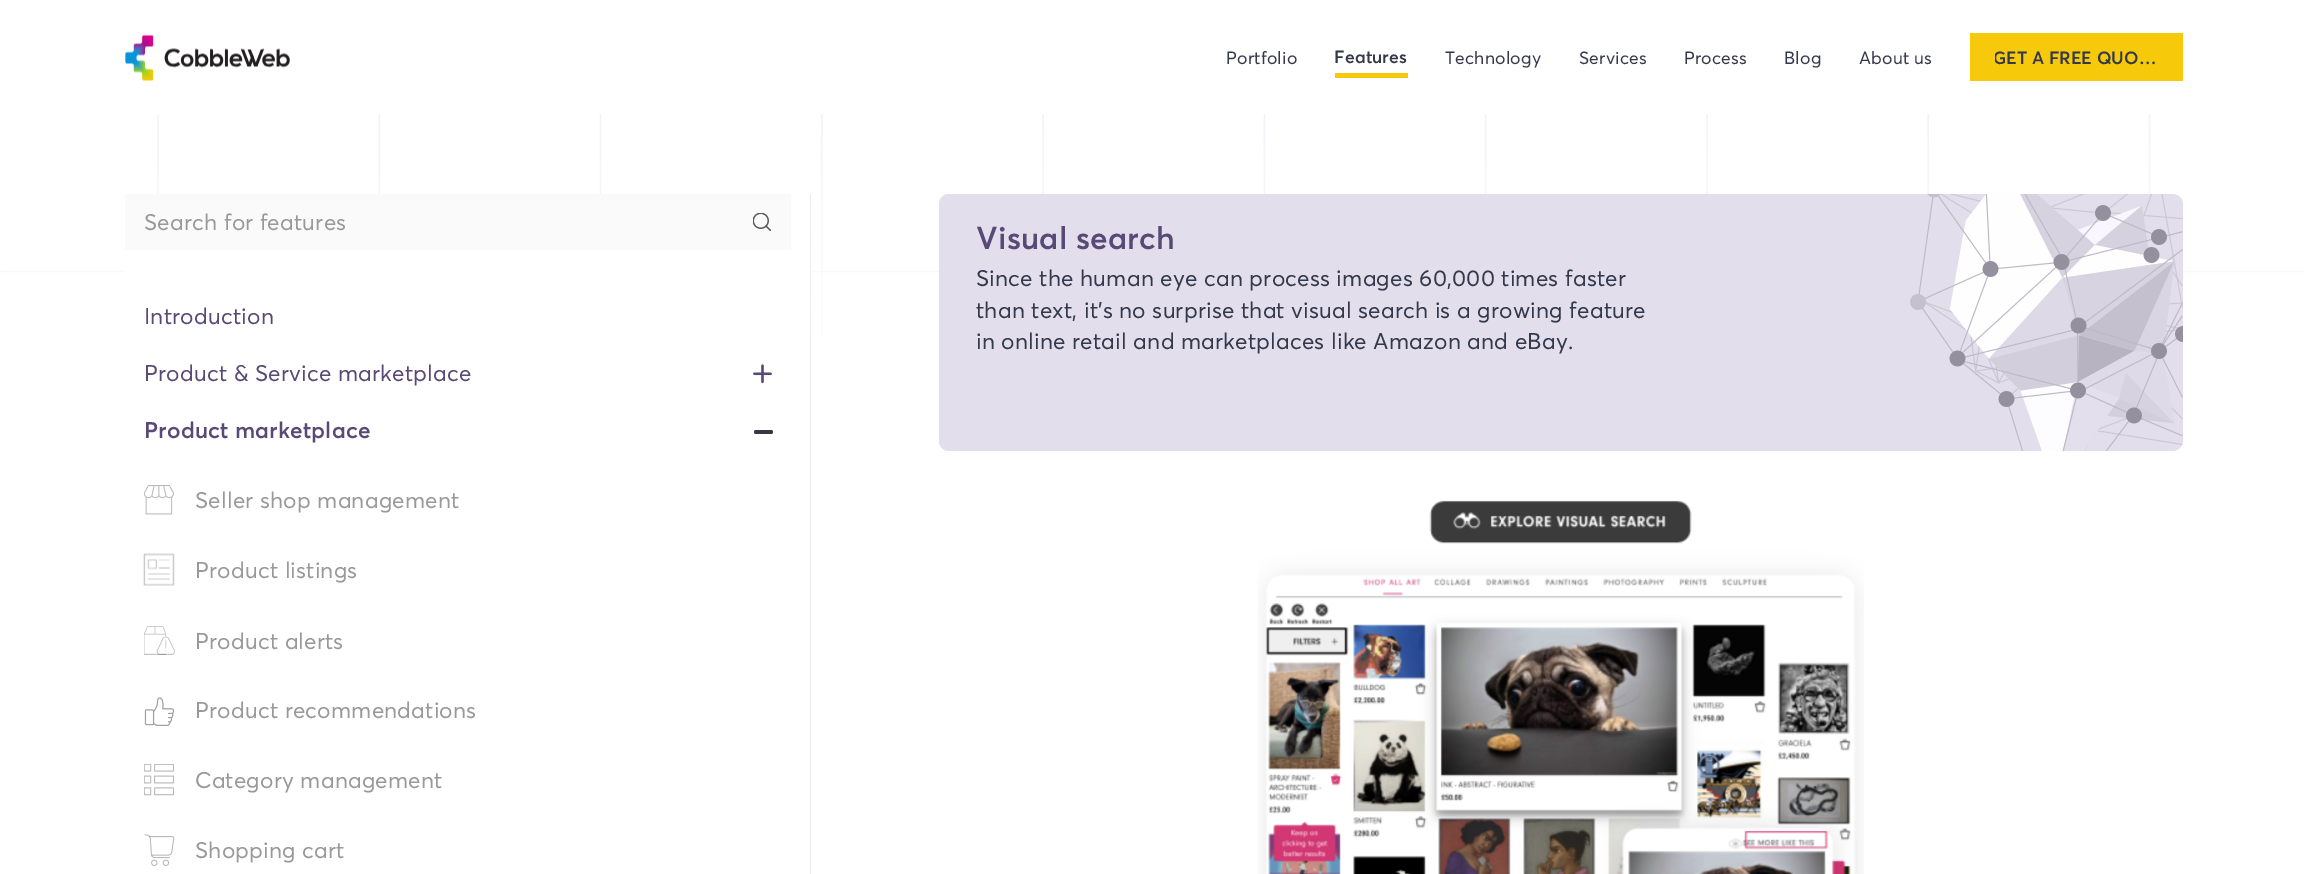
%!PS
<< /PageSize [2307 874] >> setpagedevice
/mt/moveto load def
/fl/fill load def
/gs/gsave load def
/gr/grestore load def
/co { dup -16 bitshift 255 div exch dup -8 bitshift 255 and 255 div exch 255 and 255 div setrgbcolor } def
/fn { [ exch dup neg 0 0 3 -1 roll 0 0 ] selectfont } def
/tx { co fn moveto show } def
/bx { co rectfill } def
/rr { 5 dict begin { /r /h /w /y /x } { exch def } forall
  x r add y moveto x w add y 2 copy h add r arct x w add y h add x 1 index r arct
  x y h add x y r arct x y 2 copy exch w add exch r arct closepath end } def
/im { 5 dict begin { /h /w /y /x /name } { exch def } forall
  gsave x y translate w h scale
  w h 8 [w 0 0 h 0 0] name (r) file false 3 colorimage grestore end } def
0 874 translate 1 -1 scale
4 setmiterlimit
0 0 2307 874 16#FFFFFF bx
(media/1.raw) 125 34 165 47 im
1335 73 73 5 16#F6C90B bx
1970 33 213 48 16#F6C90B bx
(media/2.raw) 0 114 2305 223 im
125 194 685 143 16#FFFFFF bx
810 194 1 680 16#EDEDED bx
125 194 666 56 16#FAFAFA bx
(media/3.raw) 753 213 18 18 im
(media/4.raw) 753 364 19 20 im
16#34384B co
754 430 19 4 2 rr fl
(media/5.raw) 144 485 30 30 im
(media/6.raw) 143 553 32 33 im
(media/7.raw) 144 626 31 29 im
(media/8.raw) 144 697 31 29 im
(media/9.raw) 144 764 30 32 im
(media/10.raw) 144 834 31 32 im
16#E2DEEB co
939 194 1244 257 10 rr fl
(media/11.raw) 1910 194 273 257 im
(media/12.raw) 1258 500 606 374 im
/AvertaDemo-Regular 17.5 fn
16#34384B co
1226 64 mt .2 0 (Portfolio) ashow
/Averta-SemiBold 17.5 fn
1334 63 mt .2 0 (Features) ashow
/AvertaDemo-Regular 17.5 fn
1445 64 mt .2 0 (Technology) ashow
1579 64 mt .2 0 (Services) ashow
1684 64 mt .2 0 (Process) ashow
1784 64 mt .2 0 (Blog) ashow
1859 64 mt .2 0 (About us) ashow
gs
1995 46 163 23 rectclip
(GET A FREE QUO…) 1993 64 /Averta-SemiBold 17.5 16#34384B tx
gr
/AvertaDemo-Regular 22.5 fn
16#999999 co
144 230 mt .2 0 (Search for features) ashow
16#584977 co
144 324 mt .2 0 (Introduction) ashow
144 381 mt .2 0 (Product & Service marketplace) ashow
/Averta-SemiBold 22.5 fn
144 438 mt .2 0 (Product marketplace) ashow
/AvertaDemo-Regular 22.5 fn
16#999999 co
195 508 mt .2 0 (Seller shop management) ashow
195 578 mt .2 0 (Product listings) ashow
195 649 mt .2 0 (Product alerts) ashow
195 718 mt .2 0 (Product recommendations) ashow
195 788 mt .2 0 (Category management) ashow
195 858 mt .2 0 (Shopping cart) ashow
/Averta-SemiBold 31.25 fn
16#584977 co
976 249 mt .25 0 (Visual search) ashow
/AvertaDemo-Regular 22.5 fn
16#34384B co
976 286 mt .2 0 (Since the human eye can process images 60,000 times faster) ashow
976 318 mt .2 0 (than text, it’s no surprise that visual search is a growing feature) ashow
976 349 mt .2 0 (in online retail and marketplaces like Amazon and eBay.) ashow
showpage
